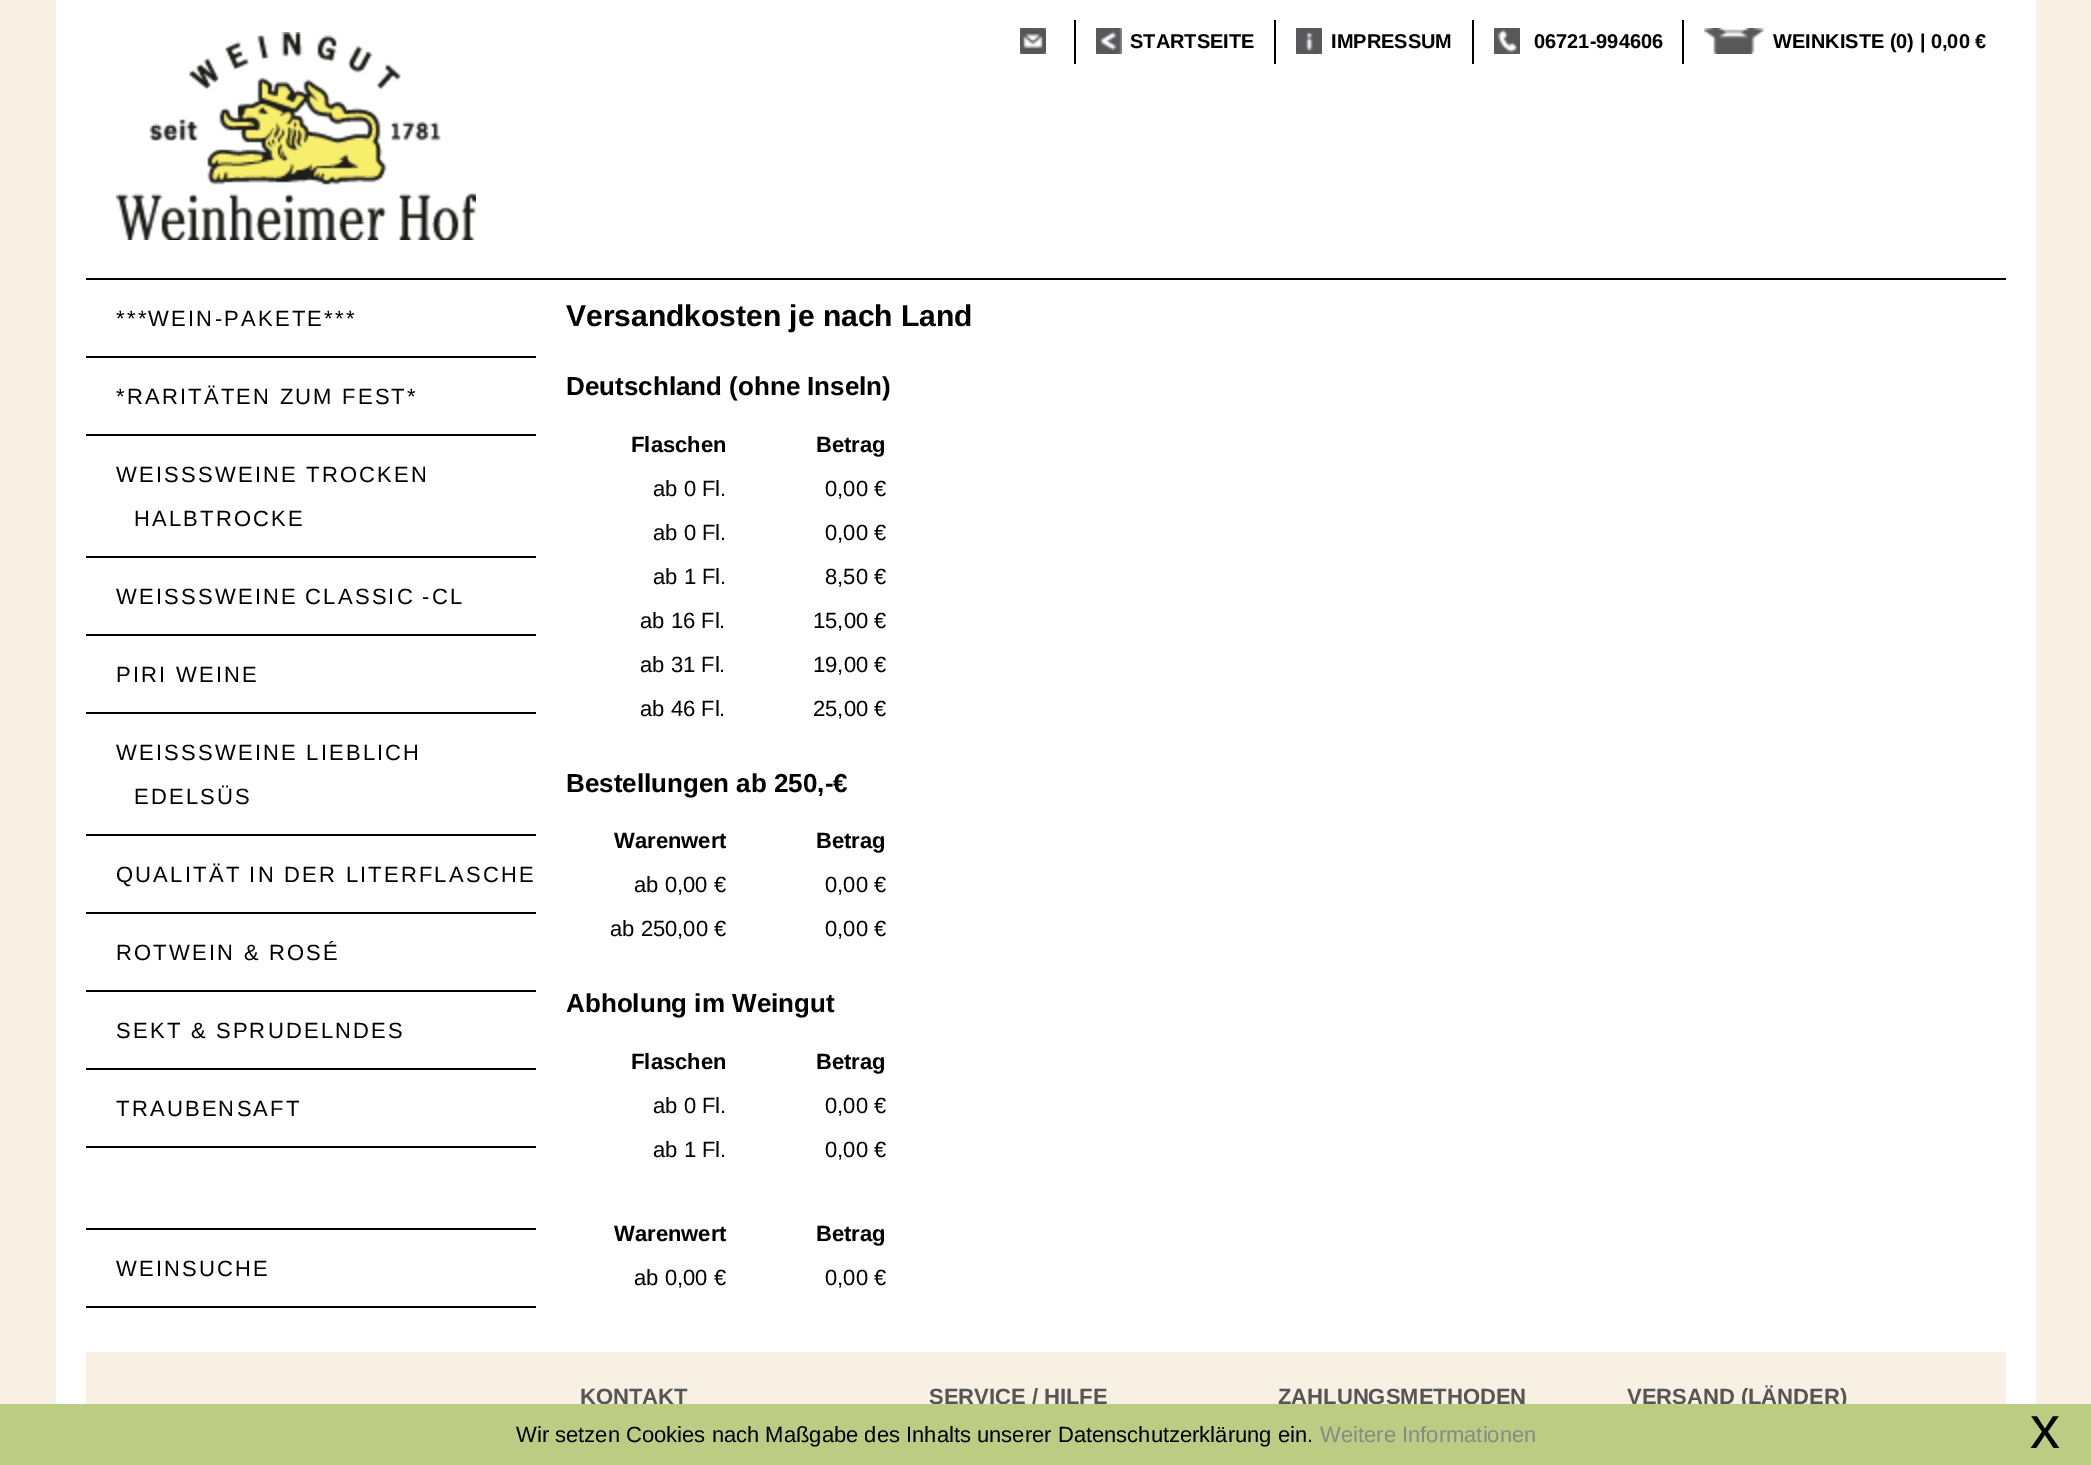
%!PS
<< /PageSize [2091 1465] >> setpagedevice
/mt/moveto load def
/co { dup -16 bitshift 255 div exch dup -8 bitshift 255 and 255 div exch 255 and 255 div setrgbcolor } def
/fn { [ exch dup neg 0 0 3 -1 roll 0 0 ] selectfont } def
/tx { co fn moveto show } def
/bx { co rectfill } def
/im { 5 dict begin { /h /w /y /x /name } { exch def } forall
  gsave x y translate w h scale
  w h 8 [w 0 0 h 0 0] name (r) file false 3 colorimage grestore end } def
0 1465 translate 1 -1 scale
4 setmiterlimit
0 0 2091 1465 16#F7F0E3 bx
56 0 1980 1404 16#FFFFFF bx
86 278 1920 2 16#000000 bx
(media/1.raw) 116 32 360 208 im
(media/2.raw) 1020 28 26 26 im
1074 20 2 44 16#000000 bx
(media/3.raw) 1096 28 26 26 im
1274 20 2 44 16#000000 bx
(media/4.raw) 1296 28 26 26 im
1472 20 2 44 16#000000 bx
(media/5.raw) 1494 28 26 26 im
1682 20 2 44 16#000000 bx
(media/6.raw) 1704 28 60 26 im
86 356 450 2 16#000000 bx
86 434 450 2 16#000000 bx
86 556 450 2 16#000000 bx
86 634 450 2 16#000000 bx
86 712 450 2 16#000000 bx
86 834 450 2 16#000000 bx
86 912 450 2 16#000000 bx
86 990 450 2 16#000000 bx
86 1068 450 2 16#000000 bx
86 1146 450 2 16#000000 bx
86 1228 450 2 16#000000 bx
86 1306 450 2 16#000000 bx
86 1352 1920 52 16#F7F0E3 bx
(STARTSEITE) 1130 48 /LiberationSans-Bold 20 16#000000 tx
(IMPRESSUM) 1331 48 /LiberationSans-Bold 20 16#000000 tx
(06721-994606) 1534 48 /LiberationSans-Bold 20 16#000000 tx
(WEINKISTE \(0\) | 0,00 €) 1773 48 /LiberationSans-Bold 20 16#000000 tx
/LiberationSans-Regular 22 fn
116 326 mt 2.2 0 (***WEIN-PAKETE***) ashow
116 404 mt 2.2 0 (*RARITÄTEN ZUM FEST*) ashow
116 482 mt 2.2 0 (WEISSSWEINE TROCKEN) ashow
134 526 mt 2.2 0 (HALBTROCKE) ashow
116 604 mt 2.2 0 (WEISS) ashow
198 604 mt -1 0 32 2.2 0 (SWEINE CLASSIC -CL) awidthshow
116 682 mt 2.2 0 (PIRI WEINE) ashow
116 760 mt 2.2 0 (WEISSSWEINE LIEBLICH) ashow
134 804 mt 2.2 0 (EDELSÜS) ashow
116 882 mt 2.2 0 (QUALITÄT IN DER LITERFLASCHE) ashow
116 960 mt 2.2 0 (ROTWEIN & ROSÉ) ashow
116 1038 mt 2.2 0 (SEKT & SPRUDELNDES) ashow
116 1116 mt 2.2 0 (TRAUBENSAFT) ashow
116 1276 mt 2.2 0 (WEINSUCHE) ashow
(Versandkosten je nach Land) 566 326 /LiberationSans-Bold 30 16#000000 tx
(Deutschland \(ohne Inseln\)) 566 395 /LiberationSans-Bold 26 16#000000 tx
(Flaschen) 631 452 /LiberationSans-Bold 22 16#000000 tx
(Betrag) 816 452 /LiberationSans-Bold 22 16#000000 tx
(ab 0 Fl.) 653 496 /LiberationSans-Regular 22 16#000000 tx
(0,00 €) 825 496 /LiberationSans-Regular 22 16#000000 tx
(ab 0 Fl.) 653 540 /LiberationSans-Regular 22 16#000000 tx
(0,00 €) 825 540 /LiberationSans-Regular 22 16#000000 tx
(ab 1 Fl.) 653 584 /LiberationSans-Regular 22 16#000000 tx
(8,50 €) 825 584 /LiberationSans-Regular 22 16#000000 tx
(ab 16 Fl.) 640 628 /LiberationSans-Regular 22 16#000000 tx
(15,00 €) 813 628 /LiberationSans-Regular 22 16#000000 tx
(ab 31 Fl.) 640 672 /LiberationSans-Regular 22 16#000000 tx
(19,00 €) 813 672 /LiberationSans-Regular 22 16#000000 tx
(ab 46 Fl.) 640 716 /LiberationSans-Regular 22 16#000000 tx
(25,00 €) 813 716 /LiberationSans-Regular 22 16#000000 tx
(Bestellungen ab 250,-€) 566 792 /LiberationSans-Bold 26 16#000000 tx
(Warenwert) 614 848 /LiberationSans-Bold 22 16#000000 tx
(Betrag) 816 848 /LiberationSans-Bold 22 16#000000 tx
(ab 0,00 €) 634 892 /LiberationSans-Regular 22 16#000000 tx
(0,00 €) 825 892 /LiberationSans-Regular 22 16#000000 tx
(ab 250,00 €) 610 936 /LiberationSans-Regular 22 16#000000 tx
(0,00 €) 825 936 /LiberationSans-Regular 22 16#000000 tx
(Abholung im Weingut) 566 1012 /LiberationSans-Bold 26 16#000000 tx
(Flaschen) 631 1069 /LiberationSans-Bold 22 16#000000 tx
(Betrag) 816 1069 /LiberationSans-Bold 22 16#000000 tx
(ab 0 Fl.) 653 1113 /LiberationSans-Regular 22 16#000000 tx
(0,00 €) 825 1113 /LiberationSans-Regular 22 16#000000 tx
(ab 1 Fl.) 653 1157 /LiberationSans-Regular 22 16#000000 tx
(0,00 €) 825 1157 /LiberationSans-Regular 22 16#000000 tx
(Warenwert) 614 1241 /LiberationSans-Bold 22 16#000000 tx
(Betrag) 816 1241 /LiberationSans-Bold 22 16#000000 tx
(ab 0,00 €) 634 1285 /LiberationSans-Regular 22 16#000000 tx
(0,00 €) 825 1285 /LiberationSans-Regular 22 16#000000 tx
(KONTAKT) 580 1404 /LiberationSans-Bold 22 16#555555 tx
(SERVICE / HILFE) 929 1404 /LiberationSans-Bold 22 16#555555 tx
(ZAHLUNGSMETHODEN) 1278 1404 /LiberationSans-Bold 22 16#555555 tx
(VERSAND \(LÄNDER\)) 1627 1404 /LiberationSans-Bold 22 16#555555 tx
0 1404 2091 61 16#BCCD83 bx
(Wir setzen Cookies nach Maßgabe des Inhalts unserer Datenschutzerklärung ein.) 516 1442 /LiberationSans-Regular 22 16#000000 tx
(Weitere Informationen) 1320 1442 /LiberationSans-Regular 22 16#888888 tx
(x) 2030 1448 /LiberationSans-Regular 60 16#000000 tx
showpage
